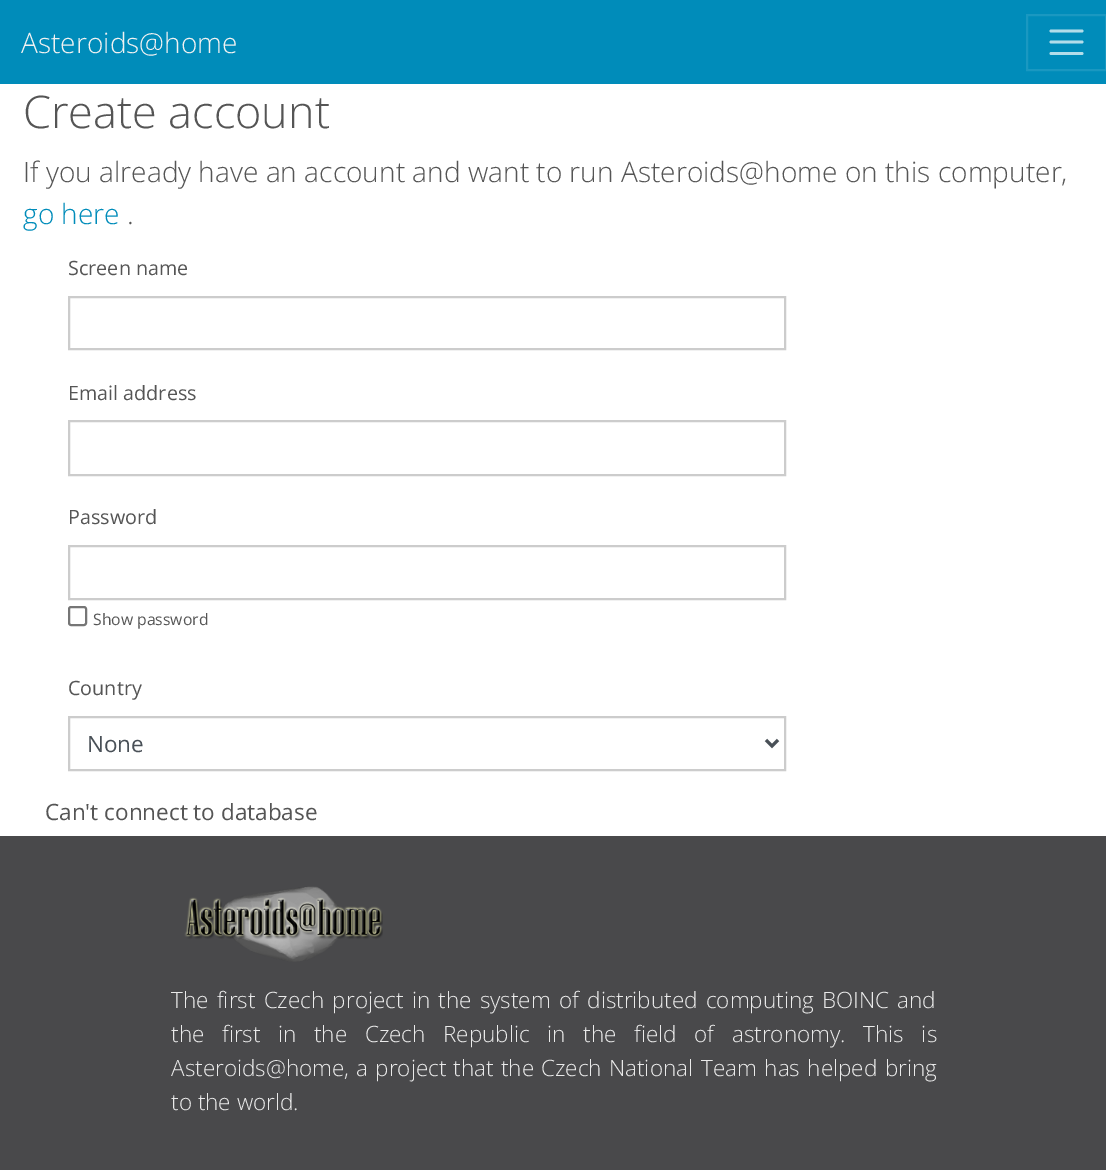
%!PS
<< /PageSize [1106 1170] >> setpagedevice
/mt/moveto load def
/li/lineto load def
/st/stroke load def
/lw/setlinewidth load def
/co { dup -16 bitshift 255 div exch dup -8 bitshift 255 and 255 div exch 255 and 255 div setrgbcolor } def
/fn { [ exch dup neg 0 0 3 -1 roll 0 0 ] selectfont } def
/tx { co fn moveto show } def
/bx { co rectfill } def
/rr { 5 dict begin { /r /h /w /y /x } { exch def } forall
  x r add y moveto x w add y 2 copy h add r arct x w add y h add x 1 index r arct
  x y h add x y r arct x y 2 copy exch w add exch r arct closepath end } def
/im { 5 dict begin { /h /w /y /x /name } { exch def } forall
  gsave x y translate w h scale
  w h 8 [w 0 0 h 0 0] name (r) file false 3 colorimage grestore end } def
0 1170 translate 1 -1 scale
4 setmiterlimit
0 0 1106 1170 16#FFFFFF bx
0 0 1106 84 16#008CBA bx
16#1A98C1 co
2 lw
1027 15 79 55 rectstroke
16#B3DDEA co
2.8 lw
1 setlinecap
1051 31 mt 1082 31 li 1051 42 mt 1082 42 li 1051 53.5 mt 1082 53.5 li st
16#CCCCCC co
2 lw
0 setlinecap
69 297 716 52 rectstroke
69 421 716 54 rectstroke
69 546 716 53 rectstroke
16#767676 co
69 607 17 18 2 rr st
16#CCCCCC co
69 717 716 53 rectstroke
16#495057 co
3 lw
766 740 mt 772 746 li 778 740 li st
0 836 1106 334 16#49494B bx
(media/1.raw) 184 886 199 76 im
(Asteroids@home) 21 53 /OpenSans-Light 28.1 16#F2F2F2 tx
(Create account) 23 128 /OpenSans-Light 45 16#555555 tx
(If you already have an account and want to run Asteroids@home on this computer,) 23 182 /OpenSans-Light 28.1 16#555555 tx
(go here) 23 224 /OpenSans-Light 28.1 16#008CBA tx
(.) 127 224 /OpenSans-Light 28.1 16#555555 tx
(Screen name) 68 275 /OpenSans-Regular 19.75 16#555555 tx
(Email address) 68 400 /OpenSans-Regular 19.75 16#555555 tx
(Password) 68 524 /OpenSans-Regular 19.75 16#555555 tx
(Show password) 93 625 /OpenSans-Regular 15.75 16#555555 tx
(Country) 68 695 /OpenSans-Regular 19.75 16#555555 tx
(None) 87 752 /OpenSans-Regular 22.5 16#495057 tx
(Can't connect to database) 45 820 /OpenSans-Regular 22.5 16#555555 tx
/OpenSans-Light 22.5 fn
16#EAEAEA co
171 1008 mt 2.4 0 32 (The first Czech project in the system of distributed computing BOINC and) widthshow
171 1042 mt 11.75 0 32 (the first in the Czech) widthshow
443 1042 mt 11.75 0 32 (Republic in the field of astronomy. This is) widthshow
171 1076 mt 1.25 0 32 (Asteroids@home, a project that the Czech National) widthshow
701 1076 mt 1.5 0 32 (Team has helped bring) widthshow
(to the world.) 171 1110 /OpenSans-Light 22.5 16#EAEAEA tx
showpage
